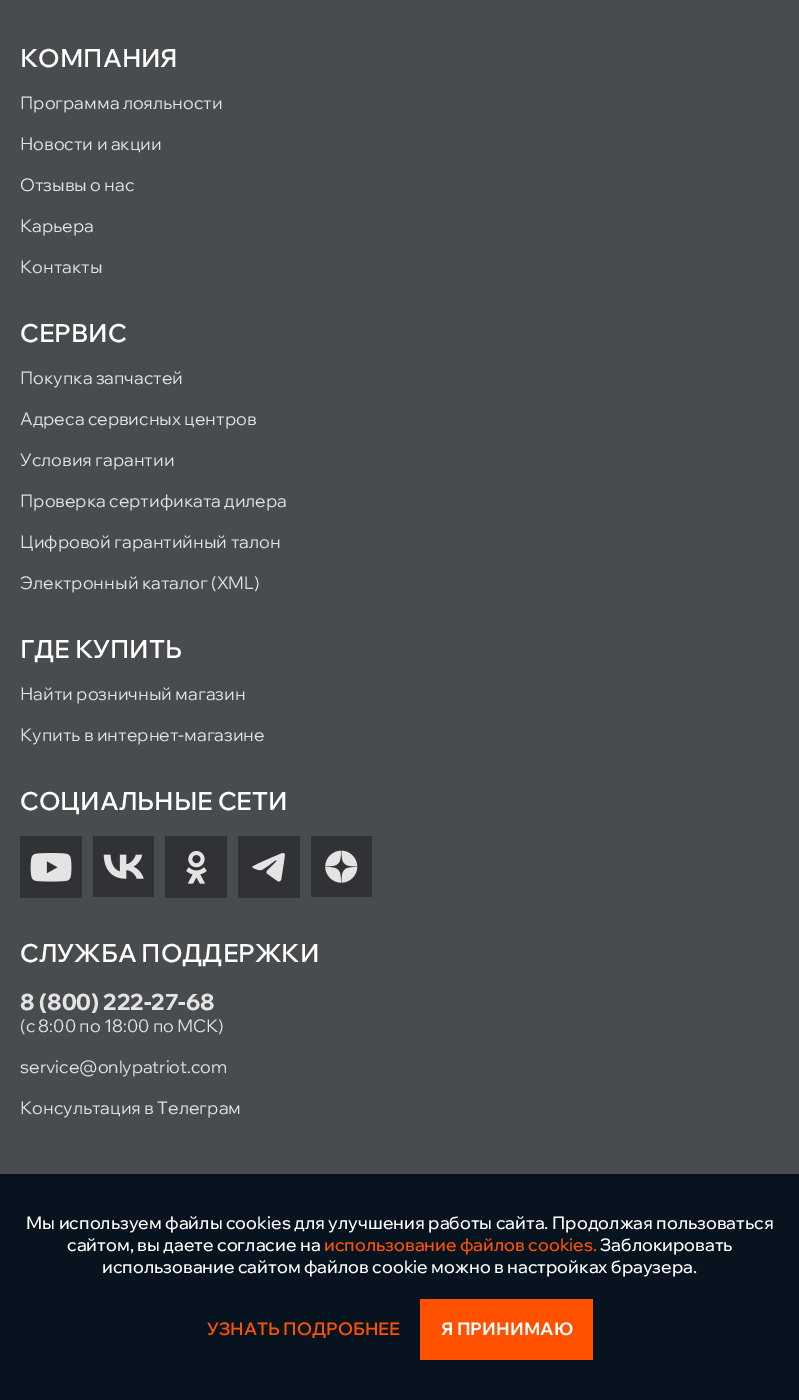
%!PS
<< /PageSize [799 1400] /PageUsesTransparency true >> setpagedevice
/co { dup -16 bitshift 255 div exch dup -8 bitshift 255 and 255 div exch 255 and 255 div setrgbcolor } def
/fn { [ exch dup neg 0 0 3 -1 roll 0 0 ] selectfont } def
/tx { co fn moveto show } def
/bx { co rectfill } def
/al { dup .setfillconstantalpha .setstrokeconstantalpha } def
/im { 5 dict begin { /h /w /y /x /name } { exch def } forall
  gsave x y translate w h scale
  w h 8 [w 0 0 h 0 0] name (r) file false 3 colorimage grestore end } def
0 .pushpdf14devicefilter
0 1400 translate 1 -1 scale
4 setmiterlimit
0 0 799 1400 16#494C4E bx
(media/1.raw) 20 836 62 62 im
(media/2.raw) 93 836 61 61 im
(media/3.raw) 165 836 62 62 im
(media/4.raw) 238 836 62 62 im
(media/5.raw) 311 836 61 61 im
0.9 al
0 1174 799 226 16#000E1A bx
1 al
420 1299 173 61 16#FF5100 bx
(КОМПАНИЯ) 20 67 /WixMadeforDisplay-SemiBold 25 16#FFFFFF tx
(Программа лояльности) 20 109 /WixMadeforDisplay-Regular 17.5 16#E4E4E4 tx
(Новости и акции) 20 150 /WixMadeforDisplay-Regular 17.5 16#E4E4E4 tx
(Отзывы о нас) 20 191 /WixMadeforDisplay-Regular 17.5 16#E4E4E4 tx
(Карьера) 20 232 /WixMadeforDisplay-Regular 17.5 16#E4E4E4 tx
(Контакты) 20 273 /WixMadeforDisplay-Regular 17.5 16#E4E4E4 tx
(СЕРВИС) 20 342 /WixMadeforDisplay-SemiBold 25 16#FFFFFF tx
(Покупка запчастей) 20 384 /WixMadeforDisplay-Regular 17.5 16#E4E4E4 tx
(Адреса сервисных центров) 20 425 /WixMadeforDisplay-Regular 17.5 16#E4E4E4 tx
(Условия гарантии) 20 466 /WixMadeforDisplay-Regular 17.5 16#E4E4E4 tx
(Проверка сертификата дилера) 20 507 /WixMadeforDisplay-Regular 17.5 16#E4E4E4 tx
(Цифровой гарантийный талон) 20 548 /WixMadeforDisplay-Regular 17.5 16#E4E4E4 tx
(Электронный каталог \(XML\)) 20 589 /WixMadeforDisplay-Regular 17.5 16#E4E4E4 tx
(ГДЕ КУПИТЬ) 20 658 /WixMadeforDisplay-SemiBold 25 16#FFFFFF tx
(Найти розничный магазин) 20 700 /WixMadeforDisplay-Regular 17.5 16#E4E4E4 tx
(Купить в интернет-магазине) 20 741 /WixMadeforDisplay-Regular 17.5 16#E4E4E4 tx
(СОЦИАЛЬНЫЕ СЕТИ) 20 810 /WixMadeforDisplay-SemiBold 25 16#FFFFFF tx
(СЛУЖБА ПОДДЕРЖКИ) 20 962 /WixMadeforDisplay-SemiBold 25 16#FFFFFF tx
(8 \(800\) 222-27-68) 20 1010 /WixMadeforDisplay-Bold 22.5 16#E4E4E4 tx
(\(с 8:00 по 18:00 по МСК\)) 20 1032 /WixMadeforDisplay-Regular 17.5 16#E4E4E4 tx
(service@onlypatriot.com) 20 1073 /WixMadeforDisplay-Regular 17.5 16#E4E4E4 tx
(Консультация в Телеграм) 20 1114 /WixMadeforDisplay-Regular 17.5 16#E4E4E4 tx
(Мы используем файлы cookies для улучшения работы сайта. Продолжая пользоваться) 26 1229 /WixMadeforDisplay-Medium 17.5 16#FFFFFF tx
(сайтом, вы даете согласие на) 67 1251 /WixMadeforDisplay-Medium 17.5 16#FFFFFF tx
(использование файлов cookies.) 324 1251 /WixMadeforDisplay-Medium 17.5 16#FF5100 tx
(Заблокировать) 600 1251 /WixMadeforDisplay-Medium 17.5 16#FFFFFF tx
(использование сайтом файлов cookie можно в настройках браузера.) 102 1273 /WixMadeforDisplay-Medium 17.5 16#FFFFFF tx
(УЗНАТЬ ПОДРОБНЕЕ) 207 1335 /WixMadeforDisplay-SemiBold 17.5 16#FF5100 tx
(Я ПРИНИМАЮ) 441 1335 /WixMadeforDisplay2-Bold 17.5 16#FFFFFF tx
.poppdf14devicefilter showpage
